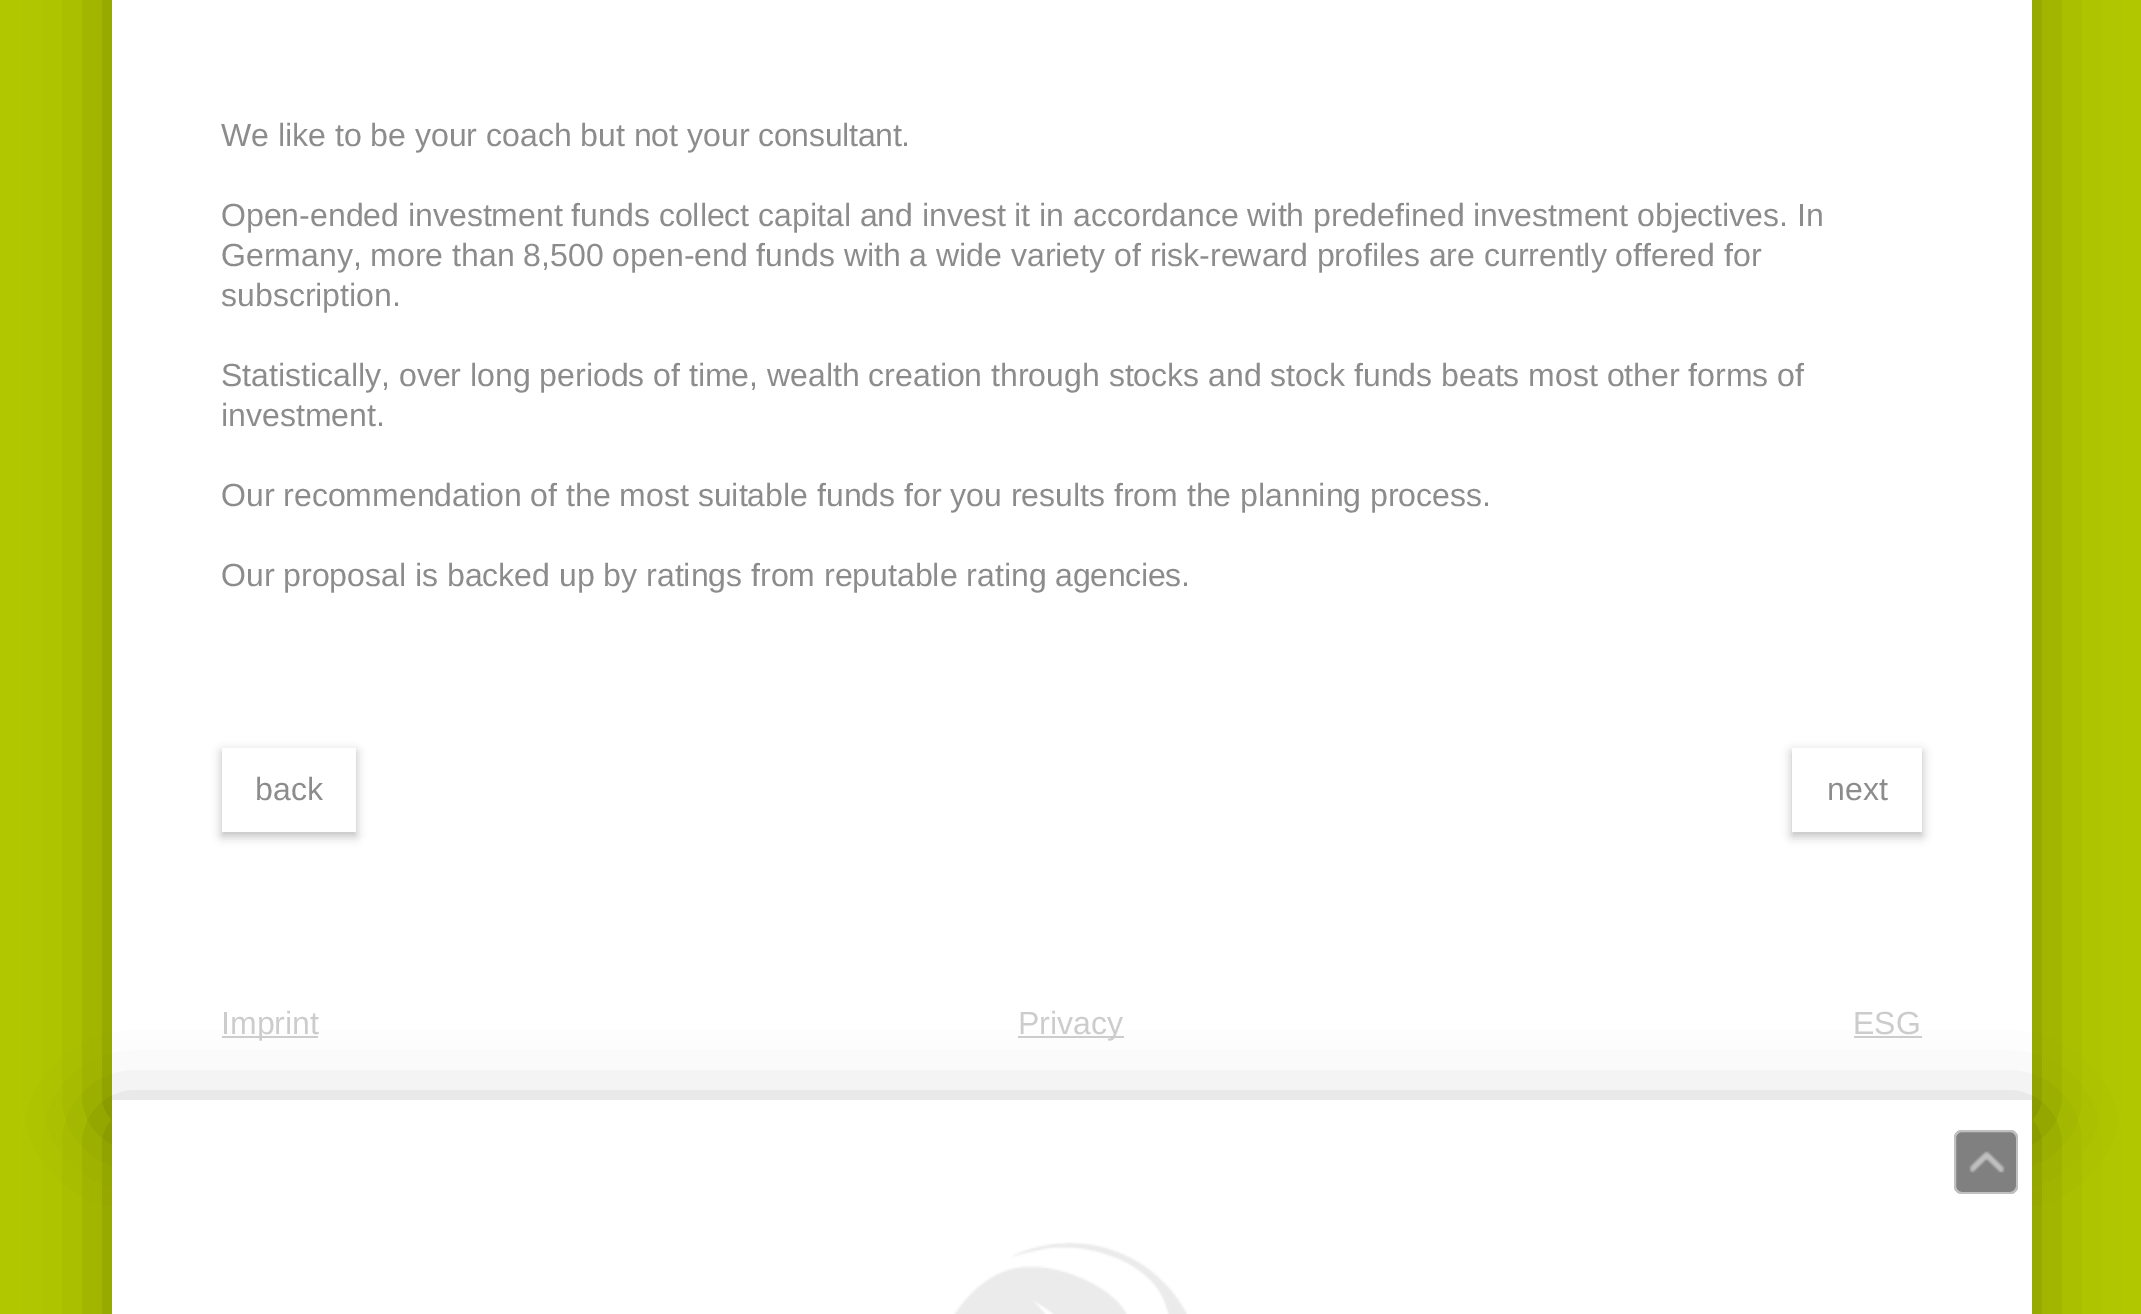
%!PS
<< /PageSize [2141 1314] /PageUsesTransparency true >> setpagedevice
/mt/moveto load def
/li/lineto load def
/cp/closepath load def
/fl/fill load def
/st/stroke load def
/gs/gsave load def
/gr/grestore load def
/lw/setlinewidth load def
/co { dup -16 bitshift 255 div exch dup -8 bitshift 255 and 255 div exch 255 and 255 div setrgbcolor } def
/fn { [ exch dup neg 0 0 3 -1 roll 0 0 ] selectfont } def
/tx { co fn moveto show } def
/bx { co rectfill } def
/al { dup .setfillconstantalpha .setstrokeconstantalpha } def
/rr { 5 dict begin { /r /h /w /y /x } { exch def } forall
  x r add y moveto x w add y 2 copy h add r arct x w add y h add x 1 index r arct
  x y h add x y r arct x y 2 copy exch w add exch r arct closepath end } def
/sh { 12 dict begin { /a /b /q /h /w /y /x } { exch def } forall gsave /was 0 def
  9 -2 -9 { dup b mul 4 div /e exch def 1 sub .425 mul 2.718 exch exp 1 add a .99 .min exch div /now exch def
    1 1 now sub 1 was sub div sub al /was now def
    w h .min e 2 mul add 0 gt { x e sub y e sub w e 2 mul add h e 2 mul add
      q e add b .6 mul add w h .min 2 div e add .min 0 .max rr fill } if } for grestore end } def
/im { 5 dict begin { /h /w /y /x /name } { exch def } forall
  gsave x y translate w h scale
  w h 8 [w 0 0 h 0 0] name (r) file false 3 colorimage grestore end } def
0 .pushpdf14devicefilter
0 1314 translate 1 -1 scale
4 setmiterlimit
0 0 2141 1314 16#B1C800 bx
16#000000 co
112 -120 1920 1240 0 40 .3 sh
112 0 1920 1100 16#FFFFFF bx
gs
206 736 mt 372 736 li 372 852 li 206 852 li cp 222 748 mt 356 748 li 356 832 li 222 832 li cp eoclip newpath
16#000000 co
222 752 134 84 0 5 .26 sh
gr
gs
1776 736 mt 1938 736 li 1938 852 li 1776 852 li cp 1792 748 mt 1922 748 li 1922 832 li 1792 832 li cp eoclip newpath
16#000000 co
1792 752 130 84 0 5 .26 sh
gr
16#000000 co
112 1120 1920 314 0 40 .3 sh
222 1036 96 2 16#CCCCCC bx
1018 1036 106 2 16#CCCCCC bx
1854 1036 68 2 16#CCCCCC bx
112 1100 1920 214 16#FFFFFF bx
(media/1.raw) 954 1242 233 72 im
16#808080 co
1954 1130 64 64 8 rr fl
0.5 al
16#FFFFFF co
2 lw
1955 1131 62 62 7 rr st
1 al
(media/2.raw) 1969 1151 36 22 im
(We like to be your coach but not your) 221 146 /LiberationSans-Regular 32 16#8C8C8C tx
758 146 mt -.25 0 (consultant.) ashow
(Open-ended investment funds collect capital and invest it in accordance with predefined investment objectives. In) 221 226 /LiberationSans-Regular 32 16#8C8C8C tx
(Germany, more than 8,500 open-end funds with a wide variety of risk-reward profiles are currently offered for) 221 266 /LiberationSans-Regular 32 16#8C8C8C tx
(subscription.) 221 306 /LiberationSans-Regular 32 16#8C8C8C tx
(Statistically, over long periods of time, wealth creation through stocks and stock funds beats most other forms of) 221 386 /LiberationSans-Regular 32 16#8C8C8C tx
(investment.) 221 426 /LiberationSans-Regular 32 16#8C8C8C tx
(Our recommendation of the most suitable funds for you results from the planning process.) 221 506 /LiberationSans-Regular 32 16#8C8C8C tx
(Our proposal is backed up by ratings from reputable rating) 221 586 /LiberationSans-Regular 32 16#8C8C8C tx
1055 586 mt -.25 0 (agencies.) ashow
(back) 255 800 /LiberationSans-Regular 32 16#8C8C8C tx
(next) 1827 800 /LiberationSans-Regular 32 16#8C8C8C tx
(Imprint) 221 1034 /LiberationSans-Regular 32 16#CCCCCC tx
(Privacy) 1018 1034 /LiberationSans-Regular 32 16#CCCCCC tx
(ESG) 1853 1034 /LiberationSans-Regular 32 16#CCCCCC tx
.poppdf14devicefilter showpage
